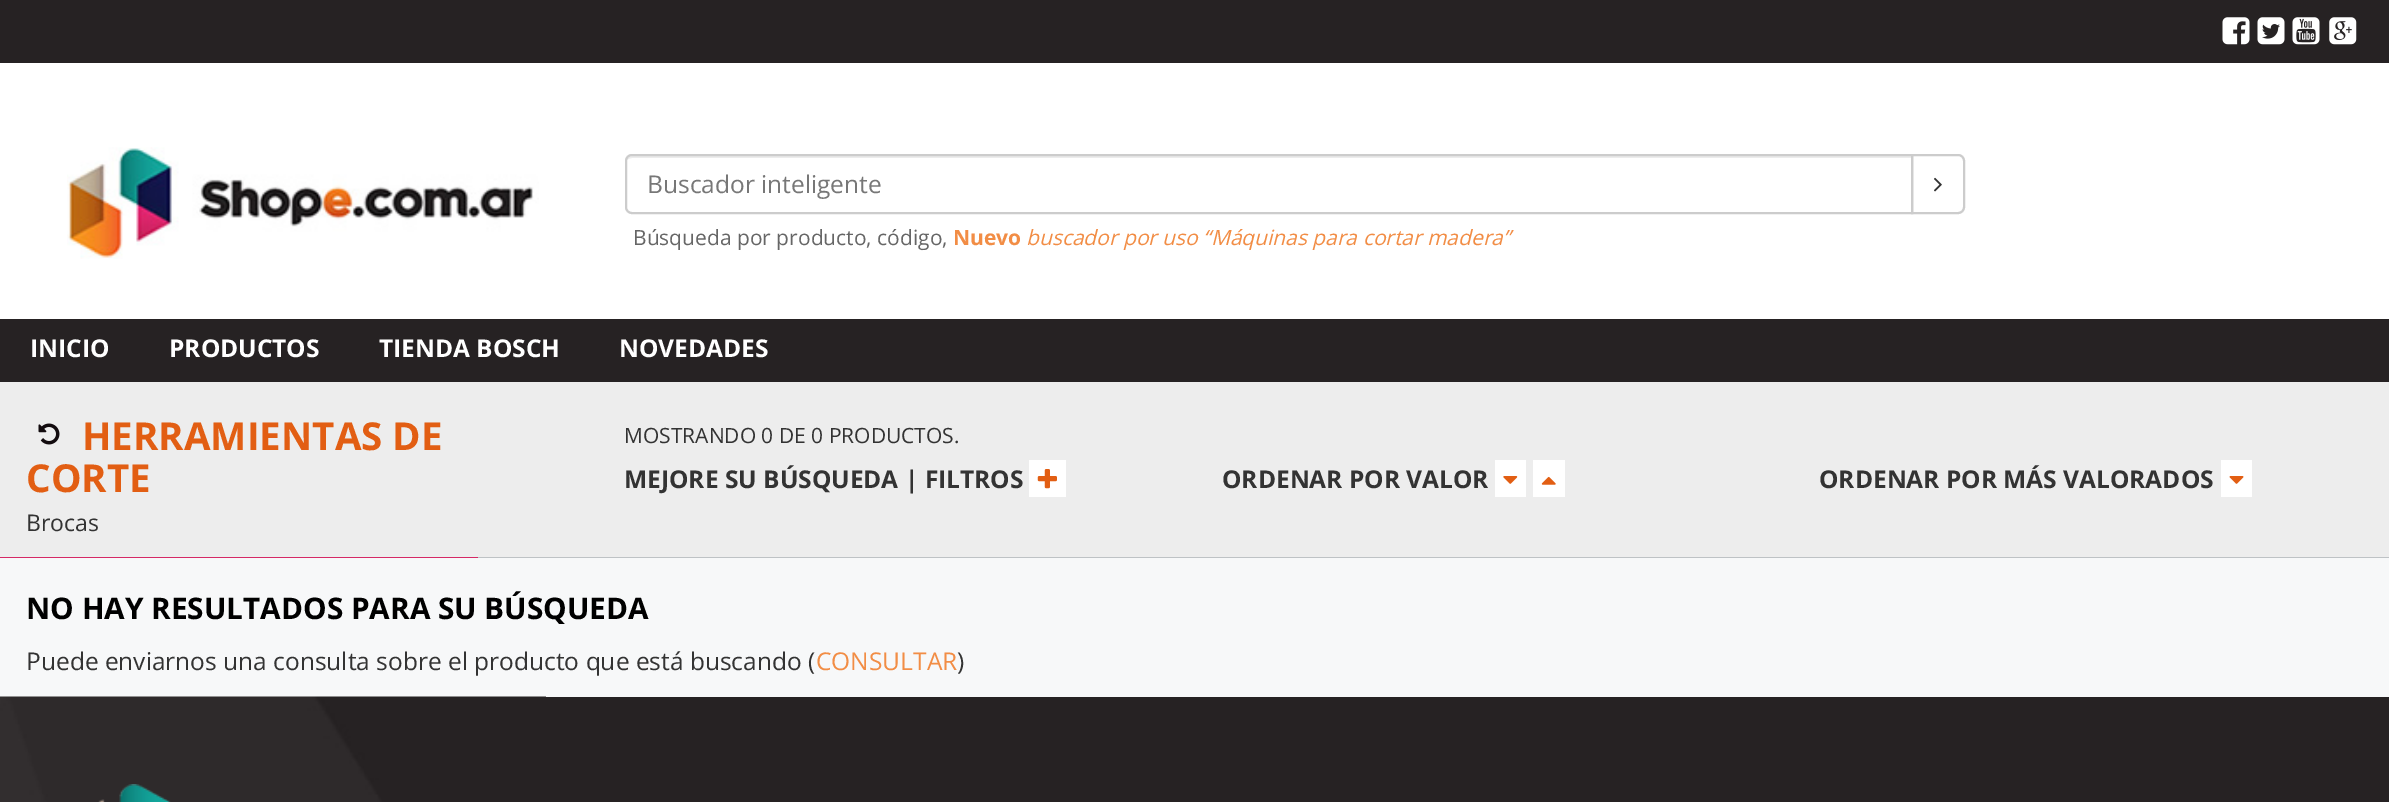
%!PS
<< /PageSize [2389 802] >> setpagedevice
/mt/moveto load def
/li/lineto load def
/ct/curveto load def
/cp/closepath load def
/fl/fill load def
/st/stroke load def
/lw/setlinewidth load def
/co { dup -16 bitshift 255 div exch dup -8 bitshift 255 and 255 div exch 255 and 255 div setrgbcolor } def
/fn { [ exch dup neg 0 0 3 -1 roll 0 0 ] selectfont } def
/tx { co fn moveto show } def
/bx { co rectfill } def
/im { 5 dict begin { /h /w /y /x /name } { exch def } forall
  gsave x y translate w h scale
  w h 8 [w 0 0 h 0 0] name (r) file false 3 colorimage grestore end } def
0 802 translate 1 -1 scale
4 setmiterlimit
0 0 2389 802 16#EDEDED bx
0 0 2389 63 16#262223 bx
(media/1.raw) 2222 17 28 28 im
(media/2.raw) 2257 17 28 28 im
(media/3.raw) 2292 17 28 28 im
(media/4.raw) 2329 17 28 28 im
0 63 2389 256 16#FFFFFF bx
(media/5.raw) 67 147 472 112 im
16#ECECEC co
632 158 mt 1911 158 li 1911 156 li 632 156 li 630 156 627 158 627 160 ct 628 159 630 158 632 158 ct cp fl
16#CCCCCC co
2 lw
1912 155 mt 1958 155 li 1961.5 155 1964 157.5 1964 161 ct 1964 207 li 1964 210.5 1961.5 213 1958 213 ct 1912 213 li cp st
632 155 mt 1912 155 li 1912 213 li 632 213 li 628.5 213 626 210.5 626 207 ct 626 161 li 626 157.5 628.5 155 632 155 ct cp st
(media/6.raw) 1934 177 8 15 im
0 319 2389 63 16#262223 bx
(media/7.raw) 38 423 22 22 im
1029 460 37 37 16#FFFFFF bx
(media/8.raw) 1037 469 20 20 im
1495 460 31 37 16#FFFFFF bx
(media/9.raw) 1503 476 15 8 im
1533 460 32 37 16#FFFFFF bx
(media/10.raw) 1541 476 15 9 im
2221 460 31 37 16#FFFFFF bx
(media/11.raw) 2229 476 15 8 im
0 557 478 1 16#D52965 bx
478 557 1911 1 16#BEC2C5 bx
0 558 2389 139 16#F7F8F9 bx
546 697 1843 105 16#262223 bx
(media/12.raw) 0 696 546 106 im
(media/13.raw) 98 784 73 18 im
(Buscador inteligente) 647 193 /OpenSans-Regular 24.5 16#777777 tx
(Búsqueda por producto, código,) 633 245 /OpenSans-Regular 21 16#666666 tx
(Nuevo) 953 245 /OpenSans-Bold 21 16#F28D45 tx
(buscador por uso “Máquinas para cortar madera”) 1026 245 /OpenSans-Italic 21 16#F28D45 tx
(INICIO) 30 357 /OpenSans-Bold 24.5 16#FFFFFF tx
(PRODUCTOS) 169 357 /OpenSans-Bold 24.5 16#FFFFFF tx
(TIENDA BOSCH) 379 357 /OpenSans-Bold 24.5 16#FFFFFF tx
(NOVEDADES) 619 357 /OpenSans-Bold 24.5 16#FFFFFF tx
(HERRAMIENTAS DE) 82 450 /OpenSans-Bold 38.5 16#E25E13 tx
(CORTE) 26 492 /OpenSans-Bold 38.5 16#E25E13 tx
(Brocas) 26 531 /OpenSans-Regular 23 16#333333 tx
(MOSTRANDO 0 DE 0 PRODUCTOS.) 624 443 /OpenSans-Regular 21 16#333333 tx
(MEJORE SU BÚSQUEDA | FILTROS) 624 488 /OpenSans-Bold 24.5 16#333333 tx
(ORDENAR POR VALOR) 1222 488 /OpenSans-Bold 24.5 16#333333 tx
(ORDENAR POR MÁS VALORADOS) 1819 488 /OpenSans-Bold 24.5 16#333333 tx
(NO HAY RESULTADOS PARA SU BÚSQUEDA) 26 619 /OpenSans-Bold 29.75 16#000000 tx
(Puede enviarnos una consulta sobre el producto que está buscando \() 26 670 /OpenSans-Regular 24.5 16#333333 tx
(CONSULTAR) 816 670 /OpenSans-Regular 24.5 16#F28D45 tx
(\)) 957 670 /OpenSans-Regular 24.5 16#333333 tx
showpage
